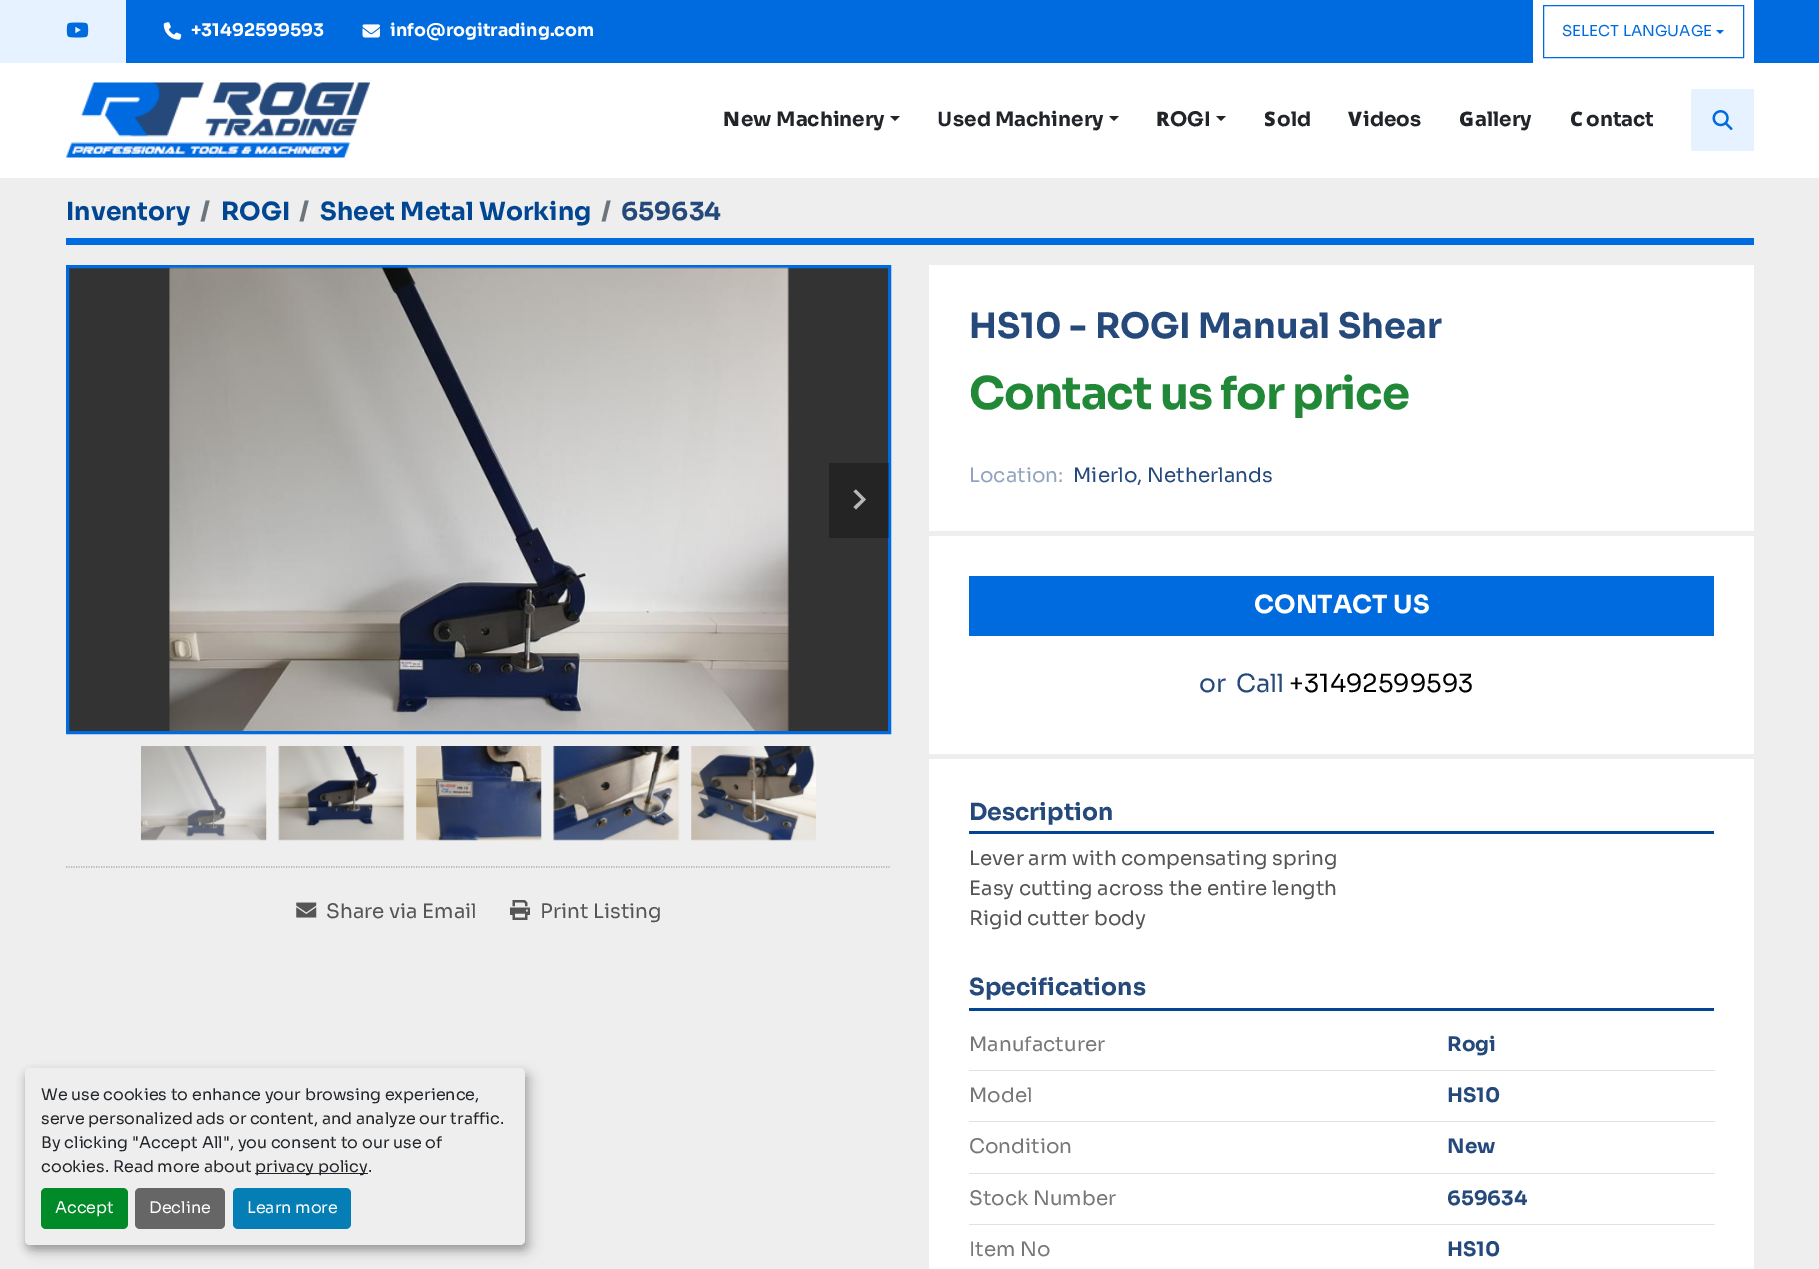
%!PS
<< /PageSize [1819 1269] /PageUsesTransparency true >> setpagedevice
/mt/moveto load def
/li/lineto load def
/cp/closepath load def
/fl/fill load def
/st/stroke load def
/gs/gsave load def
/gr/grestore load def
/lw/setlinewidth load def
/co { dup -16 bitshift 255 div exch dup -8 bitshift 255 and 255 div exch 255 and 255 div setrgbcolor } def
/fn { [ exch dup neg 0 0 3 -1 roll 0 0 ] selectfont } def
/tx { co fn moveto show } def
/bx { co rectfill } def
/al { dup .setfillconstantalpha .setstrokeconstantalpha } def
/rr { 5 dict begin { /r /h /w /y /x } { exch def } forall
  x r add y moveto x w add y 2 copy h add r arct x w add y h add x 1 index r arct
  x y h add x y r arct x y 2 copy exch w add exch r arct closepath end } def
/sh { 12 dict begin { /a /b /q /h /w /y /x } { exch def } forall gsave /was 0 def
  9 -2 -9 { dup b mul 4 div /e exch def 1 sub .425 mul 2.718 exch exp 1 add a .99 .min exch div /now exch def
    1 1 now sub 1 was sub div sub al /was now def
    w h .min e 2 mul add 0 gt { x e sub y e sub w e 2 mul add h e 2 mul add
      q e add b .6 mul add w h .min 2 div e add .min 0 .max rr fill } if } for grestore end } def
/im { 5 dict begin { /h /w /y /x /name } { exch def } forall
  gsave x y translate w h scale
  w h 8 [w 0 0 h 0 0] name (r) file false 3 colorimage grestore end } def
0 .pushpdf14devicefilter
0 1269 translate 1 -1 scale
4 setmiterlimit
0 0 1819 1269 16#EEEEEE bx
126 0 1693 63 16#006ADF bx
0 0 126 63 16#E6F2FF bx
(media/1.raw) 66 22 23 16 im
(media/2.raw) 163 22 19 18 im
(media/3.raw) 362 24 18 14 im
1533 0 221 63 16#FFFFFF bx
16#006ADF co
1543.5 5.5 200 52 rectstroke
1716 30 mt 1724 30 li 1720 34 li cp fl
0 63 1819 115 16#FFFFFF bx
(media/4.raw) 66 82 304 76 im
16#212529 co
890 116 mt 900 116 li 895 121 li cp fl
1109 116 mt 1119 116 li 1114 121 li cp fl
1216 116 mt 1226 116 li 1221 121 li cp fl
1691 89 63 62 16#E6F2FF bx
(media/5.raw) 1712 110 21 20 im
66 238 1688 7 16#006ADF bx
16#333333 co
67.5 266.5 mt 889.5 266.5 li 889.5 732.5 li 67.5 732.5 li cp gs fl gr
16#006ADF co
3 lw
st
(media/6.raw) 169 267 620 464 im
0.29 al
829 463 60 75 16#000000 bx
1 al
16#B8B8B8 co
866 499.5 mt 856 509.5 li 853.5 507 li 861.5 499.5 li 853.5 491.5 li 856 489.5 li cp fl
(media/7.raw) 141 746 126 95 im
(media/8.raw) 278 746 127 95 im
(media/9.raw) 416 746 126 95 im
(media/10.raw) 553 746 127 95 im
(media/11.raw) 691 746 125 95 im
16#AAAAAA co
1.2 lw
[1.25 1.25] 0 setdash
66 867 mt 891 867 li st
(media/12.raw) 296 902 21 16 im
(media/13.raw) 510 900 20 20 im
929 265 825 1004 16#FFFFFF bx
929 531 825 5 16#EEEEEE bx
929 754 825 5 16#EEEEEE bx
969 576 745 60 16#006ADF bx
969 831 745 3 16#004693 bx
969 1008 745 3 16#004693 bx
969 1070 746 1 16#DEE2E6 bx
969 1121 746 1 16#DEE2E6 bx
969 1173 746 1 16#DEE2E6 bx
969 1224 746 1 16#DEE2E6 bx
16#000000 co
31 1074 500 177 5 6 .19 sh
25 1073 500 177 5 4 .2 sh
16#EEEEEE co
25 1068 500 177 5 rr fl
255 1173 113 1 16#212529 bx
16#008A28 co
41 1188 87 41 5 rr fl
16#666666 co
135 1188 90 41 5 rr fl
16#057EB6 co
233 1188 118 41 5 rr fl
(+31492599593) 191 36 /Sora-Bold 17.5 16#FFFFFF tx
(info@rogitrading.com) 390 36 /Sora-Bold 17.5 16#FFFFFF tx
(SELECT LANGUAGE) 1562 36 /Sora-Regular 15 16#006ADF tx
(N) 723 126 /NotoSans-Black 20 16#212529 tx
(ew Machinery) 741 126 /Sora-Bold 20 16#212529 tx
(U) 937 126 /NotoSans-Bold 20 16#212529 tx
(sed Machinery) 953 126 /Sora-Bold 20 16#212529 tx
(R) 1156 126 /NotoSans-Black 20 16#212529 tx
(OGI) 1170 126 /Sora-Bold 20 16#212529 tx
(S) 1264 126 /NotoSans-Black 20 16#212529 tx
(old) 1277 126 /Sora-Bold 20 16#212529 tx
(V) 1348 126 /NotoSans-Black 20 16#212529 tx
(ideos) 1363 126 /Sora-Bold 20 16#212529 tx
(G) 1459 126 /NotoSans-Black 20 16#212529 tx
(allery) 1475 126 /Sora-Bold 20 16#212529 tx
(C) 1570 126 /NotoSans-Black 20 16#212529 tx
(ontact) 1586 126 /Sora-Bold 20 16#212529 tx
(Inventory) 66 220 /Sora-Bold 25 16#004693 tx
(/) 200 220 /Sora-Bold 25 16#6C757D tx
(ROGI) 221 220 /Sora-Bold 25 16#004693 tx
(/) 299 220 /Sora-Bold 25 16#6C757D tx
(Sheet Metal Working) 320 220 /Sora-Bold 25 16#004693 tx
(/) 601 220 /Sora-Bold 25 16#6C757D tx
(659634) 621 220 /Sora-Bold 25 16#24497A tx
(Share via Email) 326 918 /Sora-Regular 20 16#555555 tx
(Print Listing) 540 918 /Sora-Regular 20 16#555555 tx
(HS10 - ROGI Manual Shear) 969 338 /Sora-Bold 35 16#24497A tx
/Sora-Bold 45 fn
16#218838 co
969 409 mt -1 0 (Contact us for price) ashow
(Location:) 969 482 /Sora-Regular 20 16#92A4BD tx
(Mierlo, Netherlands) 1073 482 /Sora-Regular 20 16#24497A tx
(CONTACT US) 1254 613 /Sora-Bold 25 16#FFFFFF tx
(or) 1199 692 /Sora-Regular 25 16#24497A tx
(Call) 1236 692 /Sora-Regular 25 16#24497A tx
(+31492599593) 1289 692 /Sora-Regular 25 16#000000 tx
(Description) 969 820 /Sora-Bold 23.5 16#24497A tx
(Lever arm with compensating spring) 969 865 /Sora-Regular 20 16#555555 tx
(Easy cutting across the entire length) 969 895 /Sora-Regular 20 16#555555 tx
(Rigid cutter body) 969 925 /Sora-Regular 20 16#555555 tx
(Specifications) 969 995 /Sora-Bold 23.5 16#24497A tx
(Manufacturer) 969 1051 /Sora-Regular 20 16#777777 tx
(Rogi) 1447 1051 /Sora-Bold 20 16#24497A tx
(Model) 969 1102 /Sora-Regular 20 16#777777 tx
(HS10) 1447 1102 /Sora-Bold 20 16#24497A tx
(Condition) 969 1153 /Sora-Regular 20 16#777777 tx
(New) 1447 1153 /Sora-Bold 20 16#24497A tx
(Stock Number) 969 1205 /Sora-Regular 20 16#777777 tx
(659634) 1447 1205 /Sora-Bold 20 16#24497A tx
(Item No) 969 1256 /Sora-Regular 20 16#777777 tx
(HS10) 1447 1256 /Sora-Bold 20 16#24497A tx
(We use cookies to enhance your browsing experience,) 41 1100 /Sora-Regular 16 16#212529 tx
(serve personalized ads or content, and analyze our traffic.) 41 1124 /Sora-Regular 16 16#212529 tx
(By clicking "Accept All", you consent to our use of) 41 1148 /Sora-Regular 16 16#212529 tx
(cookies. Read more about) 41 1172 /Sora-Regular 16 16#212529 tx
(privacy policy.) 255 1172 /Sora-Regular 16 16#212529 tx
(Accept) 55 1213 /Sora-Regular 16 16#FFFFFF tx
(Decline) 149 1213 /Sora-Regular 16 16#FFFFFF tx
(Learn more) 247 1213 /Sora-Regular 16 16#FFFFFF tx
.poppdf14devicefilter showpage
